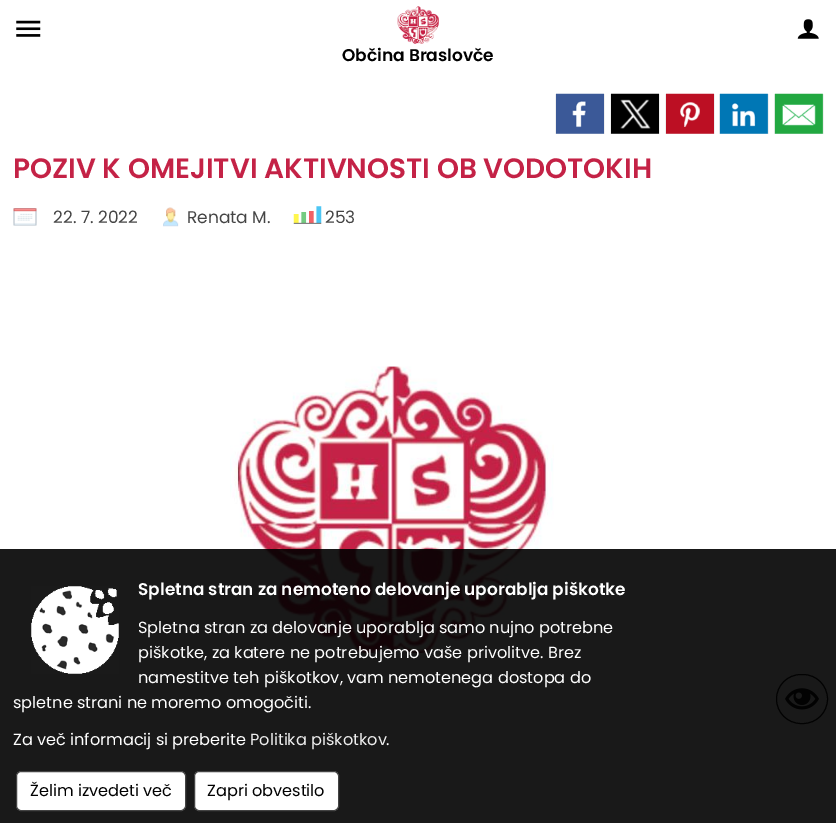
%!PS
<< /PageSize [836 823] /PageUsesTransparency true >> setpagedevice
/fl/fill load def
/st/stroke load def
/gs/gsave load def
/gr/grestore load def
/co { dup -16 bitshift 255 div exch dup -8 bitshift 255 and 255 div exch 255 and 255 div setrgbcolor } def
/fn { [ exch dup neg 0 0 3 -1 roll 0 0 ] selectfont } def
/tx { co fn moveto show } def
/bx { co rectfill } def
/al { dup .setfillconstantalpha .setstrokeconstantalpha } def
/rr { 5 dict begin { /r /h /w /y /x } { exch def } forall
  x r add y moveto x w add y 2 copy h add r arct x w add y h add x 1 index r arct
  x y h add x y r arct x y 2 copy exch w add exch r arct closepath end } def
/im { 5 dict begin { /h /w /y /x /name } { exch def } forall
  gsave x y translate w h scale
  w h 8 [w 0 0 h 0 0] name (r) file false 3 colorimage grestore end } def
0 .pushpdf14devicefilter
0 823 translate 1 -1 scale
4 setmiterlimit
0 0 836 823 16#FFFFFF bx
(media/1.raw) 16 20 25 17 im
(media/2.raw) 797 19 22 20 im
(media/3.raw) 397 6 42 38 im
555 94 50 40 16#EFEFEF bx
(media/4.raw) 556 93 48 41 im
610 94 50 40 16#EFEFEF bx
(media/5.raw) 611 93 48 41 im
665 94 50 40 16#EFEFEF bx
(media/6.raw) 666 93 48 41 im
719 94 50 40 16#EFEFEF bx
(media/7.raw) 719 93 49 41 im
774 94 50 40 16#EFEFEF bx
(media/8.raw) 774 93 49 41 im
(media/9.raw) 13 208 24 18 im
(media/10.raw) 163 207 16 20 im
(media/11.raw) 293 206 29 18 im
(media/12.raw) 230 366 324 289 im
16#111111 co
776.5 674.5 51 49 24.5 rr st
(media/14.raw) 785 688 34 22 im
0.9 al
0 549 836 274 16#000000 bx
1 al
(media/13.raw) 31 586 88 88 im
16#FFFFFF co
16.5 771.5 169 39 4.5 rr gs fl gr
16#444444 co
st
16#FFFFFF co
194.5 771.5 144 39 4.5 rr gs fl gr
16#444444 co
st
(Občina Braslovče) 342 61 /Poppins-SemiBold 17 16#000000 tx
(POZIV K OMEJITVI AKTIVNOSTI OB VODOTOKIH) 13 178 /Poppins-SemiBold 28 16#C42246 tx
(22. 7. 2022) 53 223 /Poppins-Regular 17 16#444444 tx
(Renata M.) 187 223 /Poppins-Regular 17 16#444444 tx
(253) 325 223 /Poppins-Regular 17 16#444444 tx
(Spletna stran za nemoteno delovanje uporablja piškotke) 138 595 /Poppins-SemiBold 16.95 16#FFFFFF tx
(Spletna stran za delovanje uporablja samo nujno potrebne) 138 633 /Poppins-Regular 16.15 16#FFFFFF tx
(piškotke, za katere ne potrebujemo vaše privolitve. Brez) 138 658 /Poppins-Regular 16.15 16#FFFFFF tx
(namestitve teh piškotkov, vam nemotenega dostopa do) 138 683 /Poppins-Regular 16.15 16#FFFFFF tx
(spletne strani ne moremo omogočiti.) 13 708 /Poppins-Regular 16.15 16#FFFFFF tx
(Za več informacij si preberite) 13 745 /Poppins-Regular 16.15 16#FFFFFF tx
(Politika piškotkov) 250 745 /Poppins-Regular 16.15 16#EEEEEE tx
(.) 386 745 /Poppins-Regular 16.15 16#FFFFFF tx
(Želim izvedeti več) 30 796 /Poppins-Regular 16.15 16#000000 tx
(Zapri obvestilo) 207 796 /Poppins-Regular 16.15 16#000000 tx
.poppdf14devicefilter showpage
